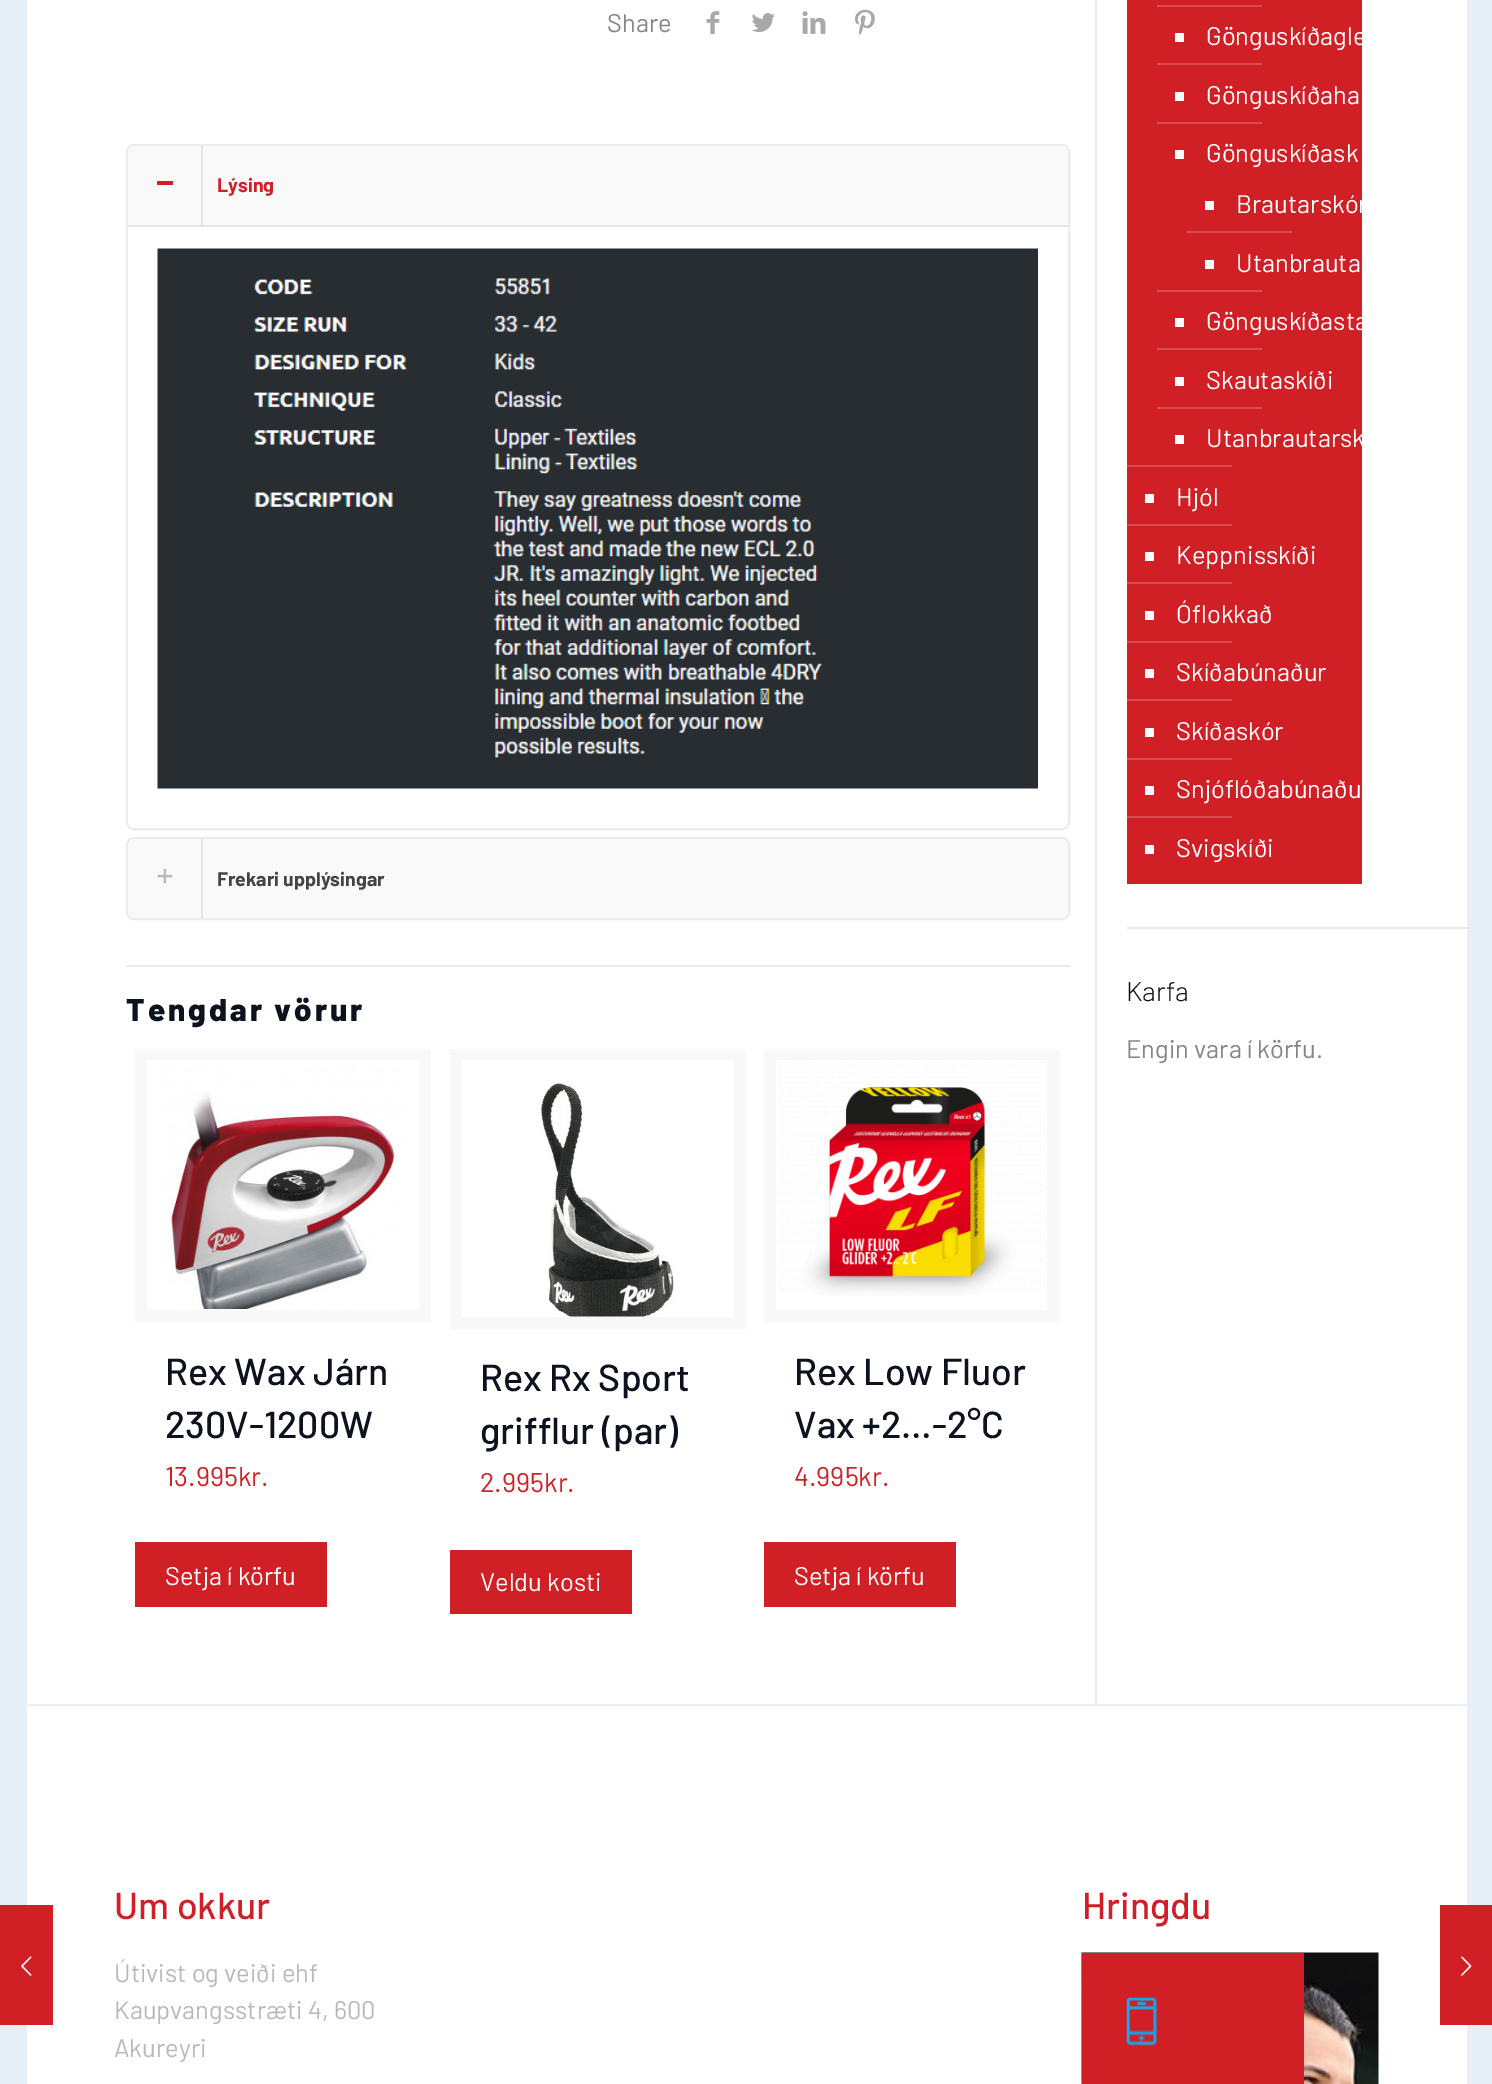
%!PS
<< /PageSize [1492 2084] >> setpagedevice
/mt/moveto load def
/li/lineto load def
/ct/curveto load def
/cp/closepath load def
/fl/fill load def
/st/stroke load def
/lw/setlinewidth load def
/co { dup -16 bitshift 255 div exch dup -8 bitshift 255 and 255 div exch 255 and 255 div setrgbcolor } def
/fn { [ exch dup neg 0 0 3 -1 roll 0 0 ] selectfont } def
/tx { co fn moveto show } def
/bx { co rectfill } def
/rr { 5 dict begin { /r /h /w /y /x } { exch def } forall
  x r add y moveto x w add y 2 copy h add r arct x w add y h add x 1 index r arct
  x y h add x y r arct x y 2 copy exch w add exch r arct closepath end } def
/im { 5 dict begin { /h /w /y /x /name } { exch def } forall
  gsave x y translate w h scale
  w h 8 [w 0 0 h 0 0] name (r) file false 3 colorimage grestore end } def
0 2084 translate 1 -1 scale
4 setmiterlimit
0 0 1492 2084 16#E6EFF5 bx
27 0 1440 2084 16#FFFFFF bx
0 1905 53 120 16#D01F25 bx
(media/1.raw) 21 1956 11 20 im
(media/2.raw) 706 11 14 24 im
(media/3.raw) 752 13 23 19 im
(media/4.raw) 802 11 24 23 im
(media/5.raw) 855 9 20 27 im
16#EBEBEB co
2 lw
127 145 942 684 7 rr st
16#F9F9F9 co
134 146 mt 1062 146 li 1065.5 146 1068 148.5 1068 152 ct 1068 227 li 128 227 li 128 152 li 128 148.5 130.5 146 134 146 ct cp fl
128 225 940 2 16#E5E5E5 bx
157 181 16 4 16#D01F25 bx
201 146 2 79 16#E5E5E5 bx
16#FFFFFF co
128 227 mt 1068 227 li 1068 822 li 1068 825.5 1065.5 828 1062 828 ct 134 828 li 130.5 828 128 825.5 128 822 ct cp fl
(media/6.raw) 157 248 881 541 im
16#EBEBEB co
127 838 942 81 7 rr st
16#F9F9F9 co
128 839 940 79 6 rr fl
(media/7.raw) 157 868 16 16 im
201 839 2 79 16#E5E5E5 bx
126 965 944 2 16#EBEBEB bx
16#F8F8F8 co
12 lw
141 1055 284 261 rectstroke
(media/8.raw) 147 1060 271 249 im
135 1542 192 65 16#D01F25 bx
16#F8F8F8 co
456 1055 284 268 rectstroke
(media/9.raw) 462 1060 271 257 im
450 1550 182 64 16#D01F25 bx
16#F8F8F8 co
770 1055 283 261 rectstroke
(media/10.raw) 776 1060 271 236 im
764 1542 192 65 16#D01F25 bx
1095 0 2 1704 16#EBEBEB bx
1127 0 235 884 16#D01F25 bx
1157 5 105 2 16#D94C51 bx
1175 33 9 9 16#FFFFFF bx
1157 63 105 2 16#D94C51 bx
1175 92 9 9 16#FFFFFF bx
1157 122 105 2 16#D94C51 bx
1175 150 9 9 16#FFFFFF bx
1205 201 9 9 16#FFFFFF bx
1187 231 105 2 16#D94C51 bx
1205 260 9 9 16#FFFFFF bx
1157 290 105 2 16#D94C51 bx
1175 318 9 9 16#FFFFFF bx
1157 348 105 2 16#D94C51 bx
1175 377 9 9 16#FFFFFF bx
1157 407 105 2 16#D94C51 bx
1175 435 9 9 16#FFFFFF bx
1127 465 105 2 16#D94C51 bx
1145 494 9 9 16#FFFFFF bx
1127 524 105 2 16#D94C51 bx
1145 552 9 9 16#FFFFFF bx
1127 582 105 2 16#D94C51 bx
1145 611 9 9 16#FFFFFF bx
1127 641 105 2 16#D94C51 bx
1145 669 9 9 16#FFFFFF bx
1127 699 105 2 16#D94C51 bx
1145 728 9 9 16#FFFFFF bx
1127 758 105 2 16#D94C51 bx
1145 786 9 9 16#FFFFFF bx
1127 816 105 2 16#D94C51 bx
1145 845 9 9 16#FFFFFF bx
1127 927 340 2 16#E9E9E9 bx
27 1704 1440 2 16#EAF0F3 bx
(media/11.raw) 1081 1952 298 132 im
1082 1953 222 131 16#D01F25 bx
(media/12.raw) 1126 1997 31 49 im
1440 1905 52 120 16#D01F25 bx
(media/13.raw) 1461 1956 11 20 im
(Share) 607 32 /Barlow-Regular 25.5 16#838589 tx
(Lýsing) 217 192 /Barlow-Bold 19.5 16#D01F25 tx
(Frekari upplýsingar) 217 886 /Barlow-Bold 19.5 16#444444 tx
/Barlow-ExtraBold 31.5 fn
16#0D121F co
126 1021 mt 3 0 (Tengdar vörur) ashow
(Rex Wax Járn) 165 1385 /Barlow-Medium 37.5 16#0D121F tx
(230V-1200W) 165 1438 /Barlow-Medium 37.5 16#0D121F tx
(13.995kr.) 165 1486 /Barlow-Regular 27 16#D01F25 tx
(Setja í körfu) 165 1585 /Barlow-Regular 25.5 16#FFFFFF tx
(Rex Rx Sport) 480 1391 /Barlow-Medium 37.5 16#0D121F tx
(grifflur \(par\)) 480 1444 /Barlow-Medium 37.5 16#0D121F tx
(2.995kr.) 480 1492 /Barlow-Regular 27 16#D01F25 tx
(Veldu kosti) 480 1591 /Barlow-Regular 25.5 16#FFFFFF tx
(Rex Low Fluor) 794 1385 /Barlow-Medium 37.5 16#0D121F tx
(Vax +2…-2°C) 794 1438 /Barlow-Medium 37.5 16#0D121F tx
(4.995kr.) 794 1486 /Barlow-Regular 27 16#D01F25 tx
(Setja í körfu) 794 1585 /Barlow-Regular 25.5 16#FFFFFF tx
(Gönguskíðagle) 1206 45 /Barlow-Regular 25.5 16#FFFFFF tx
(Gönguskíðaha) 1206 104 /Barlow-Regular 25.5 16#FFFFFF tx
(Gönguskíðask) 1206 162 /Barlow-Regular 25.5 16#FFFFFF tx
(Brautarskór) 1236 213 /Barlow-Regular 25.5 16#FFFFFF tx
(Utanbrauta) 1236 272 /Barlow-Regular 25.5 16#FFFFFF tx
(Gönguskíðasta) 1206 330 /Barlow-Regular 25.5 16#FFFFFF tx
(Skautaskíði) 1206 389 /Barlow-Regular 25.5 16#FFFFFF tx
(Utanbrautarsk) 1206 447 /Barlow-Regular 25.5 16#FFFFFF tx
(Hjól) 1176 506 /Barlow-Regular 25.5 16#FFFFFF tx
(Keppnisskíði) 1176 564 /Barlow-Regular 25.5 16#FFFFFF tx
(Óflokkað) 1176 623 /Barlow-Regular 25.5 16#FFFFFF tx
(Skíðabúnaður) 1176 681 /Barlow-Regular 25.5 16#FFFFFF tx
(Skíðaskór) 1176 740 /Barlow-Regular 25.5 16#FFFFFF tx
(Snjóflóðabúnaðu) 1176 798 /Barlow-Regular 25.5 16#FFFFFF tx
(Svigskíði) 1176 857 /Barlow-Regular 25.5 16#FFFFFF tx
(Karfa) 1126 1001 /Barlow-Light 27 16#0D121F tx
(Engin vara í körfu.) 1126 1058 /Barlow-Regular 25.5 16#838589 tx
(Um okkur) 114 1919 /Barlow-Medium 37.5 16#D01F25 tx
(Útivist og veiði ehf) 114 1982 /Barlow-Regular 25.5 16#B8B9BC tx
(Kaupvangsstræti 4, 600) 114 2019 /Barlow-Regular 25.5 16#B8B9BC tx
(Akureyri) 114 2057 /Barlow-Regular 25.5 16#B8B9BC tx
(Hringdu) 1082 1919 /Barlow-Medium 37.5 16#D01F25 tx
showpage
